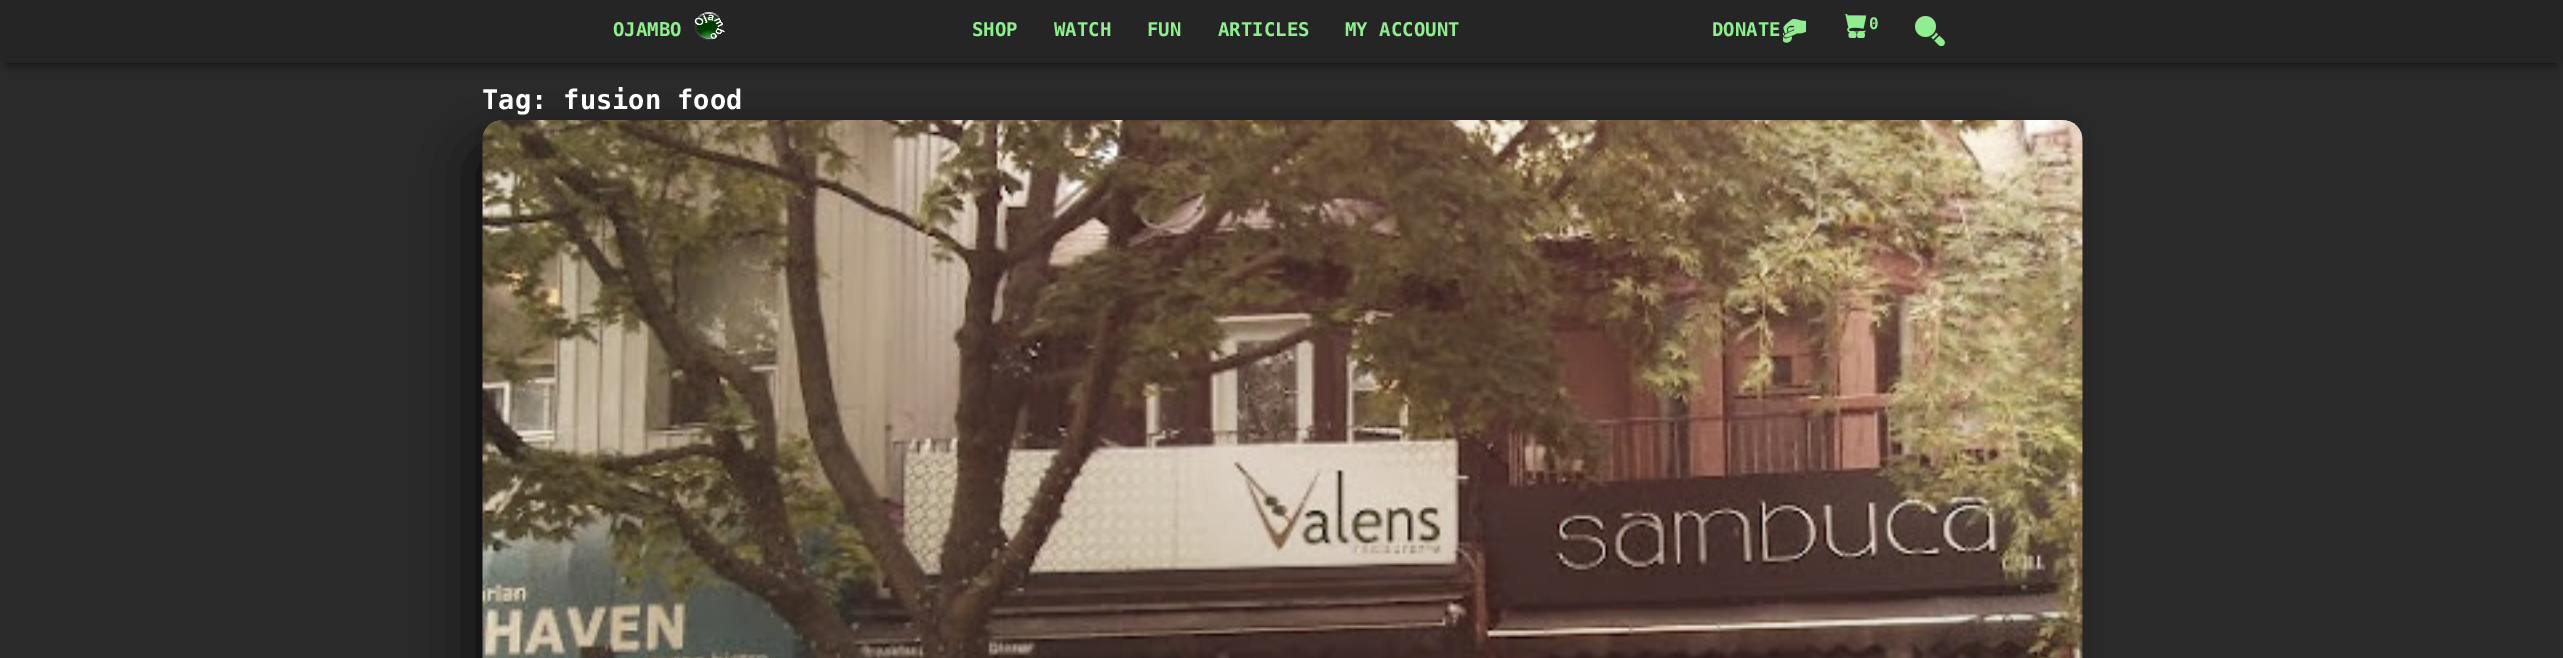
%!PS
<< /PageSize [2563 658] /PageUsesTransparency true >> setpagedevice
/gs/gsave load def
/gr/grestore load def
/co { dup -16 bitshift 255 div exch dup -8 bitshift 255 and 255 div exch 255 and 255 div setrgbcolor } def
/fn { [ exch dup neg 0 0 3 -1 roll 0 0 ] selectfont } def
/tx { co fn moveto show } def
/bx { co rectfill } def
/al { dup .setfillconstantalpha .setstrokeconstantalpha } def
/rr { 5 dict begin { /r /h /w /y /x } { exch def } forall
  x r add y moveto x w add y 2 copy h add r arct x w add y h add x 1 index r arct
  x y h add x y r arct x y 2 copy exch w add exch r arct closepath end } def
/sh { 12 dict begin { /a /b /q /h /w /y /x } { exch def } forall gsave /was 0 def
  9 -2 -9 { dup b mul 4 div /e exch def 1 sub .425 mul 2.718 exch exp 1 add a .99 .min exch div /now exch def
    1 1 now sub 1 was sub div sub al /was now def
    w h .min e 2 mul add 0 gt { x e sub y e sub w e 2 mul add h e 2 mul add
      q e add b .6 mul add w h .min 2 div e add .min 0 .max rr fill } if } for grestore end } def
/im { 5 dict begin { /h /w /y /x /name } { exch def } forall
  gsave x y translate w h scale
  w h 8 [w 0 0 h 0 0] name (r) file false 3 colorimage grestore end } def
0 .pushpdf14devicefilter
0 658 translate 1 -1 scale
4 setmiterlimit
0 0 2563 658 16#2A2A2A bx
16#000000 co
8 18 2548 47 0 4 .5 sh
0 0 2563 63 16#252525 bx
(media/1.raw) 694 12 32 29 im
(media/2.raw) 1783 19 23 24 im
(media/3.raw) 1843 14 23 24 im
(media/4.raw) 1915 16 30 30 im
16#000000 co
483 160 1520 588 0 30 1 sh
gs 483 120 1600 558 20 rr clip newpath
<< /ShadingType 2 /ColorSpace /DeviceRGB /Coords [442 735 2123 588] /Extend [true true] /Function << /FunctionType 2 /Domain [0 1] /C0 [.263 .263 .263] /C1 [.149 .149 .149] /N 1 >> >> shfill gr
483 124 1600 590 20 12 .2 sh
(media/5.raw) 482 120 1601 538 im
(media/6.raw) 482 120 1601 538 im
(OJAMBO) 613 36 /DejaVuSansMono-Bold 19 16#90EE90 tx
(SHOP) 972 36 /DejaVuSansMono-Bold 19 16#90EE90 tx
(WATCH) 1054 36 /DejaVuSansMono-Bold 19 16#90EE90 tx
(FUN) 1147 36 /DejaVuSansMono-Bold 19 16#90EE90 tx
(ARTICLES) 1218 36 /DejaVuSansMono-Bold 19 16#90EE90 tx
(MY ACCOUNT) 1345 36 /DejaVuSansMono-Bold 19 16#90EE90 tx
(DONATE) 1712 36 /DejaVuSansMono-Bold 19 16#90EE90 tx
(0) 1869 29 /DejaVuSansMono-Bold 16 16#90EE90 tx
(Tag: fusion food) 482 109 /DejaVuSansMono-Bold 27 16#FFFFFF tx
.poppdf14devicefilter showpage
